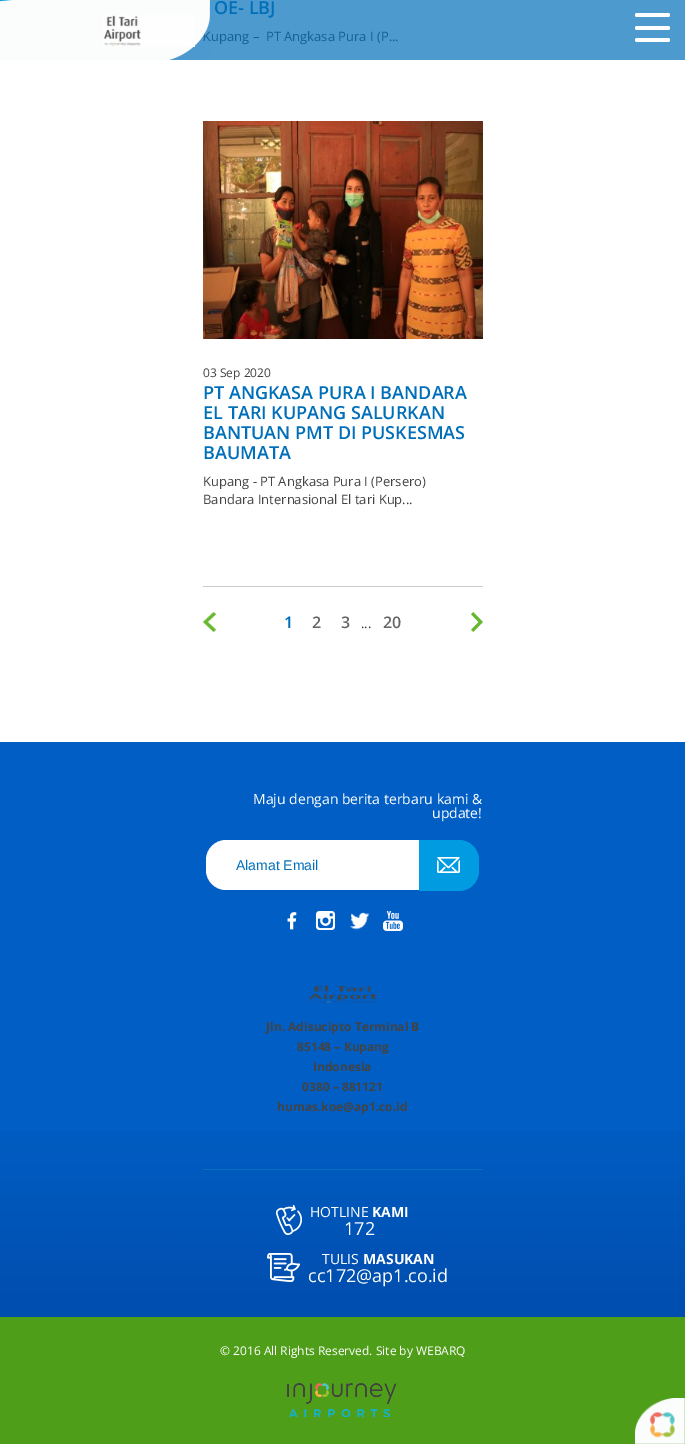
%!PS
<< /PageSize [685 1444] >> setpagedevice
/mt/moveto load def
/li/lineto load def
/ct/curveto load def
/cp/closepath load def
/fl/fill load def
/co { dup -16 bitshift 255 div exch dup -8 bitshift 255 and 255 div exch 255 and 255 div setrgbcolor } def
/fn { [ exch dup neg 0 0 3 -1 roll 0 0 ] selectfont } def
/tx { co fn moveto show } def
/bx { co rectfill } def
/rr { 5 dict begin { /r /h /w /y /x } { exch def } forall
  x r add y moveto x w add y 2 copy h add r arct x w add y h add x 1 index r arct
  x y h add x y r arct x y 2 copy exch w add exch r arct closepath end } def
/im { 5 dict begin { /h /w /y /x /name } { exch def } forall
  gsave x y translate w h scale
  w h 8 [w 0 0 h 0 0] name (r) file false 3 colorimage grestore end } def
0 1444 translate 1 -1 scale
4 setmiterlimit
0 0 685 1444 16#FFFFFF bx
169 0 516 60 16#4D9ACF bx
16#FFFFFF co
635 13 35 4 2 rr fl
635 26 35 4 2 rr fl
635 38 35 4 2 rr fl
(media/3.raw) 203 121 280 218 im
203 586 280 1 16#CBCBCB bx
(media/4.raw) 203 612 13 20 im
(media/5.raw) 471 612 12 20 im
0 742 685 389 16#005EC5 bx
(media/6.raw) 0 1131 685 186 im
16#FFFFFF co
226 840 mt 420 840 li 420 890 li 226 890 li 215 890 206 881 206 870 ct 206 860 li 206 849 215 840 226 840 ct cp fl
16#009BE0 co
419 840 mt 459 840 li 470 840 479 849 479 860 ct 479 871 li 479 882 470 891 459 891 ct 419 891 li cp fl
(media/7.raw) 437 857 23 16 im
(media/8.raw) 287 912 10 18 im
(media/9.raw) 316 911 19 19 im
(media/10.raw) 350 912 19 18 im
(media/11.raw) 383 911 20 20 im
203 1169 280 1 16#0072B9 bx
(media/12.raw) 309 985 68 18 im
(media/13.raw) 276 1205 26 30 im
(media/14.raw) 267 1253 33 29 im
0 1317 685 127 16#4F9E19 bx
(media/15.raw) 287 1383 109 34 im
(media/16.raw) 635 1398 50 46 im
(OE- LBJ) 214 14 /OpenSans-SemiBold 18 16#006FBA tx
(Kupang –  PT Angkasa Pura I \(P...) 203 41 /OpenSans-Regular 13 16#146197 tx
(media/1.raw) 0 0 210 60 im
(media/2.raw) 103 15 92 32 im
(03 Sep 2020) 203 377 /OpenSans-Regular 12 16#434343 tx
(PT ANGKASA PURA I BANDARA) 203 399 /OpenSans-SemiBold 18 16#006FBA tx
(EL TARI KUPANG SALURKAN) 203 419 /OpenSans-SemiBold 18 16#006FBA tx
(BANTUAN PMT DI PUSKESMAS) 203 439 /OpenSans-SemiBold 18 16#006FBA tx
(BAUMATA) 203 459 /OpenSans-SemiBold 18 16#006FBA tx
(Kupang - PT Angkasa Pura I \(Persero\)) 203 486 /OpenSans-Regular 13 16#434343 tx
(Bandara Internasional El tari Kup...) 203 504 /OpenSans-Regular 13 16#434343 tx
(1) 284 628 /OpenSans-SemiBold 16 16#006FBA tx
(2) 312 628 /OpenSans-SemiBold 16 16#666666 tx
(3) 341 628 /OpenSans-SemiBold 16 16#666666 tx
(...) 361 628 /OpenSans-Regular 13 16#434343 tx
(20) 383 628 /OpenSans-SemiBold 16 16#666666 tx
(Maju dengan berita terbaru kami &) 253 804 /OpenSans-Regular 14 16#FFFFFF tx
(update!) 432 818 /OpenSans-Regular 14 16#FFFFFF tx
(Alamat Email) 236 870 /LiberationSans-Regular 14 16#006FBA tx
(Jln. Adisucipto Terminal B) 266 1031 /OpenSans-Bold 12 16#434343 tx
(85148 – Kupang) 297 1051 /OpenSans-Bold 12 16#434343 tx
(Indonesia) 313 1071 /OpenSans-Bold 12 16#434343 tx
(0380 – 881121) 302 1091 /OpenSans-Bold 12 16#434343 tx
(humas.koe@ap1.co.id) 277 1111 /OpenSans-Bold 12 16#434343 tx
(HOTLINE) 310 1217 /OpenSans-Regular 14 16#FFFFFF tx
(KAMI) 372 1217 /OpenSans-Bold 14 16#FFFFFF tx
(172) 344 1235 /OpenSans-Regular 18 16#FFFFFF tx
(TULIS) 322 1264 /OpenSans-Regular 14 16#FFFFFF tx
(MASUKAN) 363 1264 /OpenSans-Bold 14 16#FFFFFF tx
(cc172@ap1.co.id) 308 1282 /OpenSans-Regular 18 16#FFFFFF tx
(© 2016 All Rights Reserved. Site by WEBARQ) 220 1355 /OpenSans-Regular 12 16#FFFFFF tx
showpage
